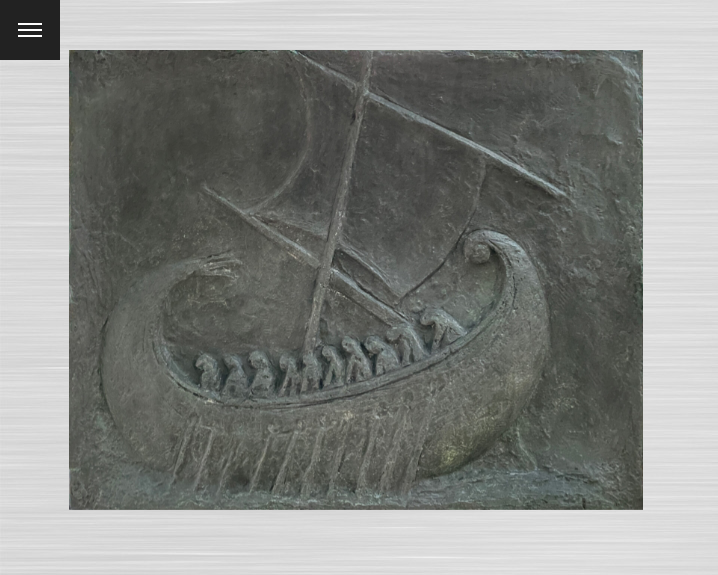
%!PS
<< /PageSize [718 575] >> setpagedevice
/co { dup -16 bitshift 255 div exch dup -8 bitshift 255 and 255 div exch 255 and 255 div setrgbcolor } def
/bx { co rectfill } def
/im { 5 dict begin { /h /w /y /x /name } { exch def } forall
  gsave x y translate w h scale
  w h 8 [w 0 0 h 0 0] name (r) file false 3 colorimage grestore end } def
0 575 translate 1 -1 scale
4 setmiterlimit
0 0 718 575 16#FFFFFF bx
(media/1.raw) 0 0 718 575 im
0 0 60 60 16#222222 bx
18 23 24 2 16#FFFFFF bx
18 29 24 2 16#FFFFFF bx
18 35 24 2 16#FFFFFF bx
(media/2.raw) 69 50 574 460 im
showpage
